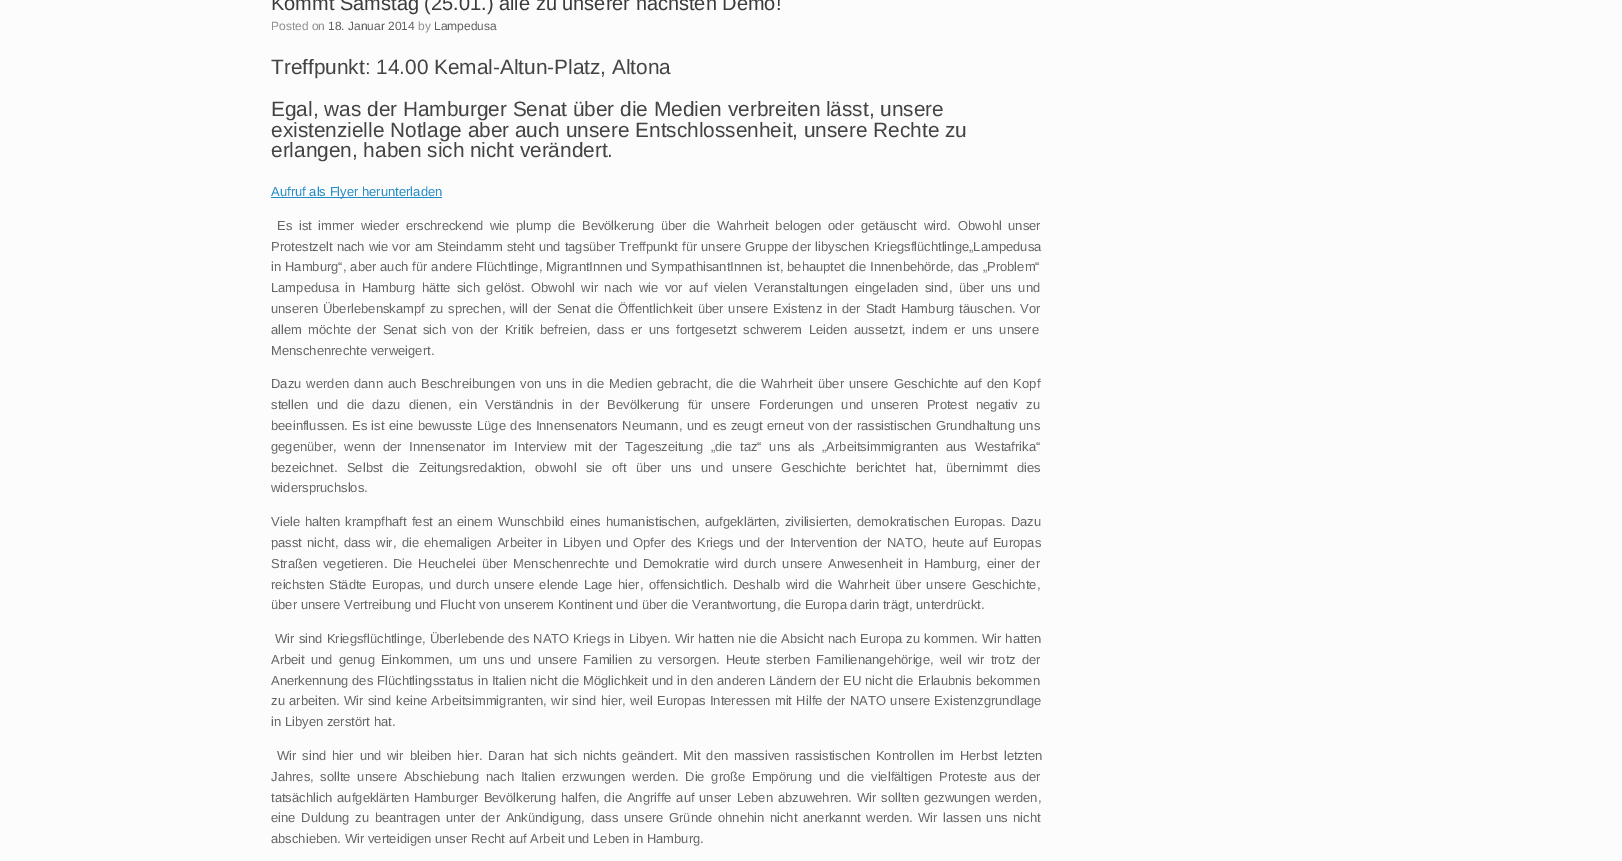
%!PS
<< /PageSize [1622 861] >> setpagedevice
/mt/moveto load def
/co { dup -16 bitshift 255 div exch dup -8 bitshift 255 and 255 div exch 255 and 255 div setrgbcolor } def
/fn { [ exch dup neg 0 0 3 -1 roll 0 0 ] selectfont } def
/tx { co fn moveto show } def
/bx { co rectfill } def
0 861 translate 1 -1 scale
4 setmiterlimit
0 0 1622 861 16#FCFCFC bx
271 197 171 1 16#248CC8 bx
(Kommt Samstag \(25.01.\) alle zu unserer nächsten Demo!) 271 10 /LiberationSans-Regular 20 16#3B3B3B tx
(Posted on) 271 30 /LiberationSans-Regular 12 16#8F8F8F tx
(18. Januar 2014) 328 30 /LiberationSans-Regular 12 16#5E5E5E tx
(by) 418 30 /LiberationSans-Regular 12 16#8F8F8F tx
(Lampedusa) 434 30 /LiberationSans-Regular 12 16#5E5E5E tx
(Treffpunkt: 14.00 Kemal-Altun-Platz, Altona) 271 74 /LiberationSans-Regular 20.8 16#444444 tx
(Egal, was der Hamburger Senat über die Medien verbreiten lässt, unsere) 271 116 /LiberationSans-Regular 20.8 16#444444 tx
(existenzielle Notlage aber auch unsere Entschlossenheit, unsere Rechte zu) 271 137 /LiberationSans-Regular 20.8 16#444444 tx
(erlangen, haben sich nicht verändert.) 271 157 /LiberationSans-Regular 20.8 16#444444 tx
(Aufruf als Flyer herunterladen) 271 196 /LiberationSans-Regular 13 16#248CC8 tx
16#666666 co
277 230 mt 2.9 0 32 (Es ist immer wieder erschreckend wie plump die Bevölkerung über die Wahrheit belogen oder getäuscht wird. Obwohl unser) widthshow
271 251 mt .5 0 32 (Protestzelt nach wie vor am Steindamm steht und tagsüber Treffpunkt für unsere Gruppe der libyschen Kriegsflüchtlinge„Lampedusa) widthshow
271 271 mt .3 0 32 (in Hamburg“, aber auch für andere Flüchtlinge, MigrantInnen und SympathisantInnen ist, behauptet die Innenbehörde, das „Problem“) widthshow
271 292 mt 2.75 0 32 (Lampedusa in Hamburg hätte sich gelöst. Obwohl wir nach wie vor auf vielen Veranstaltungen eingeladen sind, über uns und) widthshow
271 313 mt 1.25 0 32 (unseren Überlebenskampf zu sprechen, will der Senat die Öffentlichkeit über unsere Existenz in der Stadt Hamburg täuschen. Vor) widthshow
271 334 mt 2.75 0 32 (allem möchte der Senat sich von der Kritik befreien, dass er uns fortgesetzt schwerem Leiden aussetzt, indem er uns unsere) widthshow
(Menschenrechte verweigert.) 271 355 /LiberationSans-Regular 13 16#666666 tx
271 388 mt 1.4 0 32 (Dazu werden dann auch Beschreibungen von uns in die Medien gebracht, die die Wahrheit über unsere Geschichte auf den Kopf) widthshow
271 409 mt 4.6 0 32 (stellen und die dazu dienen, ein Verständnis in der Bevölkerung für unsere Forderungen und unseren Protest negativ zu) widthshow
271 430 mt .75 0 32 (beeinflussen. Es ist eine bewusste Lüge des Innensenators Neumann, und es zeugt erneut von der rassistischen Grundhaltung uns) widthshow
271 451 mt 4 0 32 (gegenüber, wenn der Innensenator im Interview mit der Tageszeitung „die taz“ uns als „Arbeitsimmigranten aus Westafrika“) widthshow
271 472 mt 5.75 0 32 (bezeichnet. Selbst die Zeitungsredaktion, obwohl sie oft über uns und unsere Geschichte berichtet hat, übernimmt dies) widthshow
(widerspruchslos.) 271 492 /LiberationSans-Regular 13 16#666666 tx
271 526 mt 1.4 0 32 (Viele halten krampfhaft fest an einem Wunschbild eines humanistischen, aufgeklärten, zivilisierten, demokratischen Europas. Dazu) widthshow
271 547 mt 1.6 0 32 (passt nicht, dass wir, die ehemaligen Arbeiter in Libyen und Opfer des Kriegs und der Intervention der NATO, heute auf Europas) widthshow
271 568 mt 2.1 0 32 (Straßen vegetieren. Die Heuchelei über Menschenrechte und Demokratie wird durch unsere Anwesenheit in Hamburg, einer der) widthshow
271 589 mt 1.75 0 32 (reichsten Städte Europas, und durch unsere elende Lage hier, offensichtlich. Deshalb wird die Wahrheit über unsere Geschichte,) widthshow
(über unsere Vertreibung und Flucht von unserem Kontinent und über die Verantwortung, die Europa darin trägt, unterdrückt.) 271 609 /LiberationSans-Regular 13 16#666666 tx
275 643 mt .5 0 32 (Wir sind Kriegsflüchtlinge, Überlebende des NATO Kriegs in Libyen. Wir hatten nie die Absicht nach Europa zu kommen. Wir hatten) widthshow
271 664 mt 2.4 0 32 (Arbeit und genug Einkommen, um uns und unsere Familien zu versorgen. Heute sterben Familienangehörige, weil wir trotz der) widthshow
271 685 mt .3 0 32 (Anerkennung des Flüchtlingsstatus in Italien nicht die Möglichkeit und in den anderen Ländern der EU nicht die Erlaubnis bekommen) widthshow
271 705 mt .75 0 32 (zu arbeiten. Wir sind keine Arbeitsimmigranten, wir sind hier, weil Europas Interessen mit Hilfe der NATO unsere Existenzgrundlage) widthshow
(in Libyen zerstört hat.) 271 726 /LiberationSans-Regular 13 16#666666 tx
277 760 mt 2.25 0 32 (Wir sind hier und wir bleiben hier. Daran hat sich nichts geändert. Mit den massiven rassistischen Kontrollen im Herbst letzten) widthshow
271 781 mt 3.1 0 32 (Jahres, sollte unsere Abschiebung nach Italien erzwungen werden. Die große Empörung und die vielfältigen Proteste aus der) widthshow
271 802 mt 1.25 0 32 (tatsächlich aufgeklärten Hamburger Bevölkerung halfen, die Angriffe auf unser Leben abzuwehren. Wir sollten gezwungen werden,) widthshow
271 822 mt 2 0 32 (eine Duldung zu beantragen unter der Ankündigung, dass unsere Gründe ohnehin nicht anerkannt werden. Wir lassen uns nicht) widthshow
(abschieben. Wir verteidigen unser Recht auf Arbeit und Leben in Hamburg.) 271 843 /LiberationSans-Regular 13 16#666666 tx
showpage
